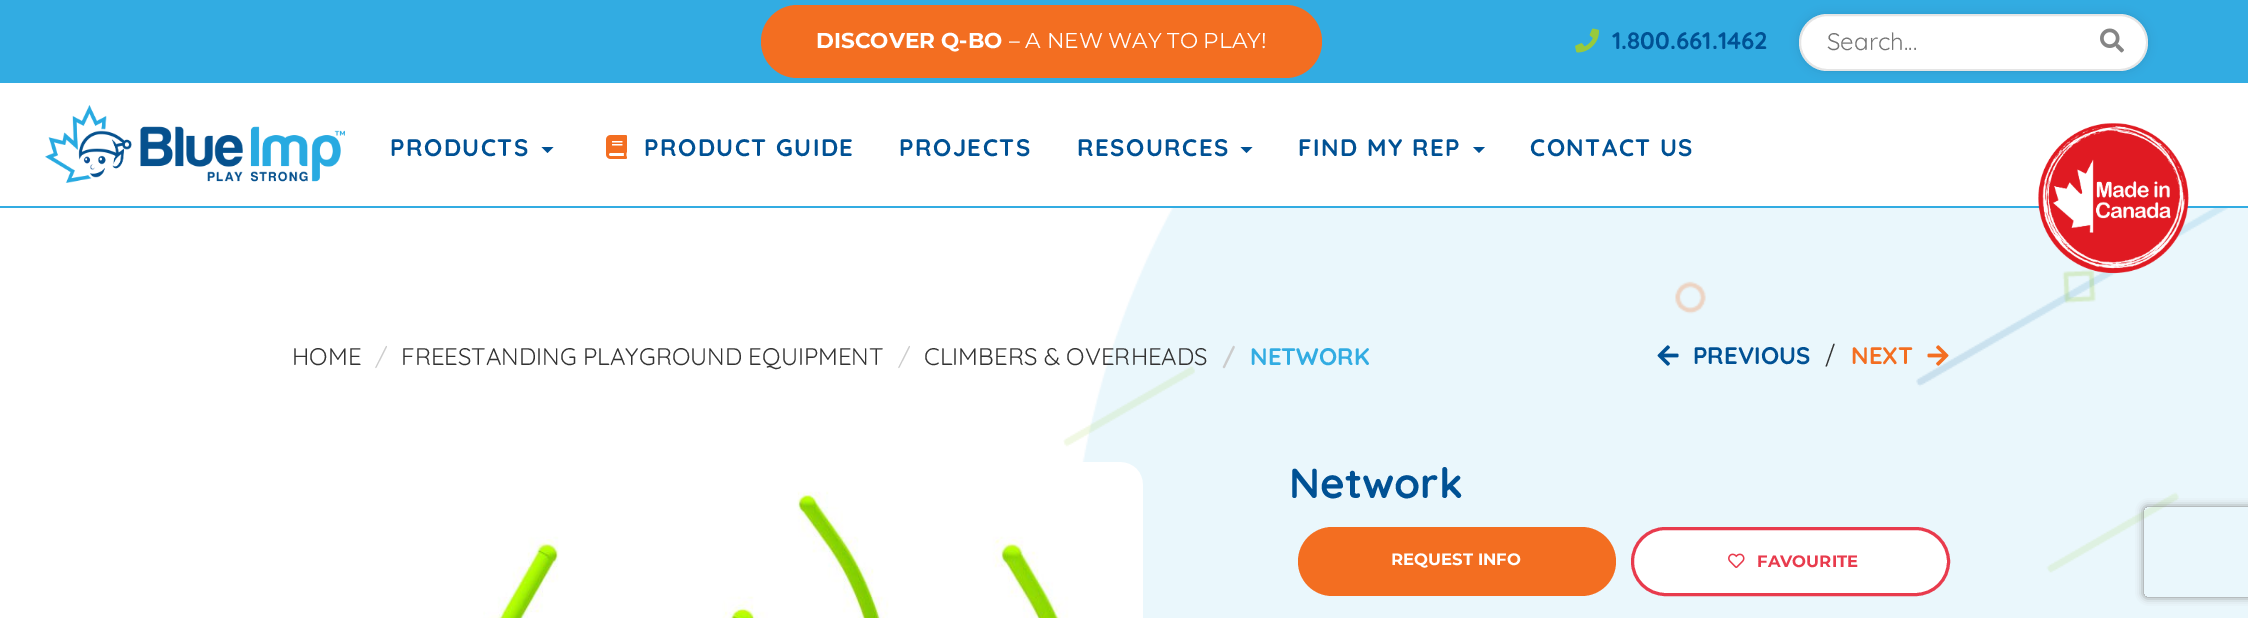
%!PS
<< /PageSize [2248 618] /PageUsesTransparency true >> setpagedevice
/mt/moveto load def
/li/lineto load def
/ct/curveto load def
/cp/closepath load def
/fl/fill load def
/st/stroke load def
/gs/gsave load def
/gr/grestore load def
/lw/setlinewidth load def
/co { dup -16 bitshift 255 div exch dup -8 bitshift 255 and 255 div exch 255 and 255 div setrgbcolor } def
/fn { [ exch dup neg 0 0 3 -1 roll 0 0 ] selectfont } def
/tx { co fn moveto show } def
/bx { co rectfill } def
/al { dup .setfillconstantalpha .setstrokeconstantalpha } def
/rr { 5 dict begin { /r /h /w /y /x } { exch def } forall
  x r add y moveto x w add y 2 copy h add r arct x w add y h add x 1 index r arct
  x y h add x y r arct x y 2 copy exch w add exch r arct closepath end } def
/sh { 12 dict begin { /a /b /q /h /w /y /x } { exch def } forall gsave /was 0 def
  9 -2 -9 { dup b mul 4 div /e exch def 1 sub .425 mul 2.718 exch exp 1 add a .99 .min exch div /now exch def
    1 1 now sub 1 was sub div sub al /was now def
    w h .min e 2 mul add 0 gt { x e sub y e sub w e 2 mul add h e 2 mul add
      q e add b .6 mul add w h .min 2 div e add .min 0 .max rr fill } if } for grestore end } def
/im { 5 dict begin { /h /w /y /x /name } { exch def } forall
  gsave x y translate w h scale
  w h 8 [w 0 0 h 0 0] name (r) file false 3 colorimage grestore end } def
0 .pushpdf14devicefilter
0 618 translate 1 -1 scale
4 setmiterlimit
0 0 2248 618 16#FFFFFF bx
0 0 2248 83 16#32ACE2 bx
16#F36E21 co
761 5 561 73 36.5 rr fl
(media/1.raw) 1575 28 24 25 im
16#000000 co
1799 14 349 57 28.5 4.5 .1 sh
16#FFFFFF co
1799 14 349 57 28.5 rr fl
0.1 al
16#000000 co
2 lw
1800 15 347 55 27.5 rr st
1 al
(media/2.raw) 2100 28 24 25 im
0 206 2248 2 16#32ACE2 bx
(media/3.raw) 45 105 300 78 im
16#005194 co
541.5 147 mt 553.5 147 li 547.5 153 li cp fl
(media/4.raw) 606 135 21 24 im
1240.5 147 mt 1252.5 147 li 1246.5 153 li cp fl
1473 147 mt 1485 147 li 1479 153 li cp fl
(media/7.raw) 1083 208 1165 410 im
(media/6.raw) 1063 208 1165 365 im
(media/8.raw) 1675 269 421 45 im
(media/5.raw) 2038 123 151 151 im
(media/9.raw) 1657 345 22 21 im
(media/10.raw) 1927 345 22 21 im
(media/11.raw) 483 462 660 156 im
16#F36E21 co
1298 527 318 69 34.5 rr fl
16#FFFFFF co
1632.5 528.5 316 66 33 rr gs fl gr
16#E83B4D co
3 lw
st
(media/12.raw) 1728 553 17 15 im
gs
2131 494 mt 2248 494 li 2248 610 li 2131 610 li cp 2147 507 mt 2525 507 li 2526.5 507 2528 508.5 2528 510 ct 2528 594 li 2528 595.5 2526.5 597 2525 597 ct 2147 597 li 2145.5 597 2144 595.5 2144 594 ct 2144 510 li 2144 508.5 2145.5 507 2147 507 ct cp eoclip newpath
16#808080 co
2144 507 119 90 3 4 1 sh
gr
(DISCOVER Q-BO) 816 48 /Montserrat-Bold 21.6 16#FFFFFF tx
(– A NEW WAY TO PLAY!) 1009 48 /Montserrat-Regular 21.6 16#FFFFFF tx
(1.800.661.1462) 1612 49 /Quicksand-Bold 24 16#005194 tx
(Search...) 1827 50 /Quicksand-Regular 24 16#757575 tx
/Quicksand-Bold 24 fn
16#005194 co
390 156 mt 1.5 0 (PRODUCTS) ashow
644 156 mt 1.5 0 (PRODUCT GUIDE) ashow
899 156 mt 1.5 0 (PROJECTS) ashow
1077 156 mt 1.5 0 (RESOURCES) ashow
1298 156 mt 1.5 0 (FIND MY REP) ashow
1530 156 mt 1.5 0 (CONTACT US) ashow
(HOME) 292 365 /Quicksand-Regular 24 16#333333 tx
(/) 375 365 /Quicksand-Regular 24 16#CCCCCC tx
(FREESTANDING PLAYGROUND EQUIPMENT) 401 365 /Quicksand-Regular 24 16#333333 tx
(/) 898 365 /Quicksand-Regular 24 16#CCCCCC tx
(CLIMBERS & OVERHEADS) 924 365 /Quicksand-Regular 24 16#333333 tx
(/) 1222 365 /Quicksand-Bold 24 16#CCCCCC tx
(NETWORK) 1250 365 /Quicksand-Bold 24 16#32ACE2 tx
(PREVIOUS) 1693 364 /Quicksand-Bold 24 16#005194 tx
(/) 1826 364 /Montserrat-Regular 24 16#333333 tx
(NEXT) 1851 364 /Quicksand-Bold 24 16#F36E21 tx
(Network) 1289 498 /Quicksand-Bold 42 16#005194 tx
(REQUEST INFO) 1391 565 /Montserrat-Bold 16.5 16#FFFFFF tx
(FAVOURITE) 1757 567 /Montserrat-Bold 16.5 16#E83B4D tx
.poppdf14devicefilter showpage
